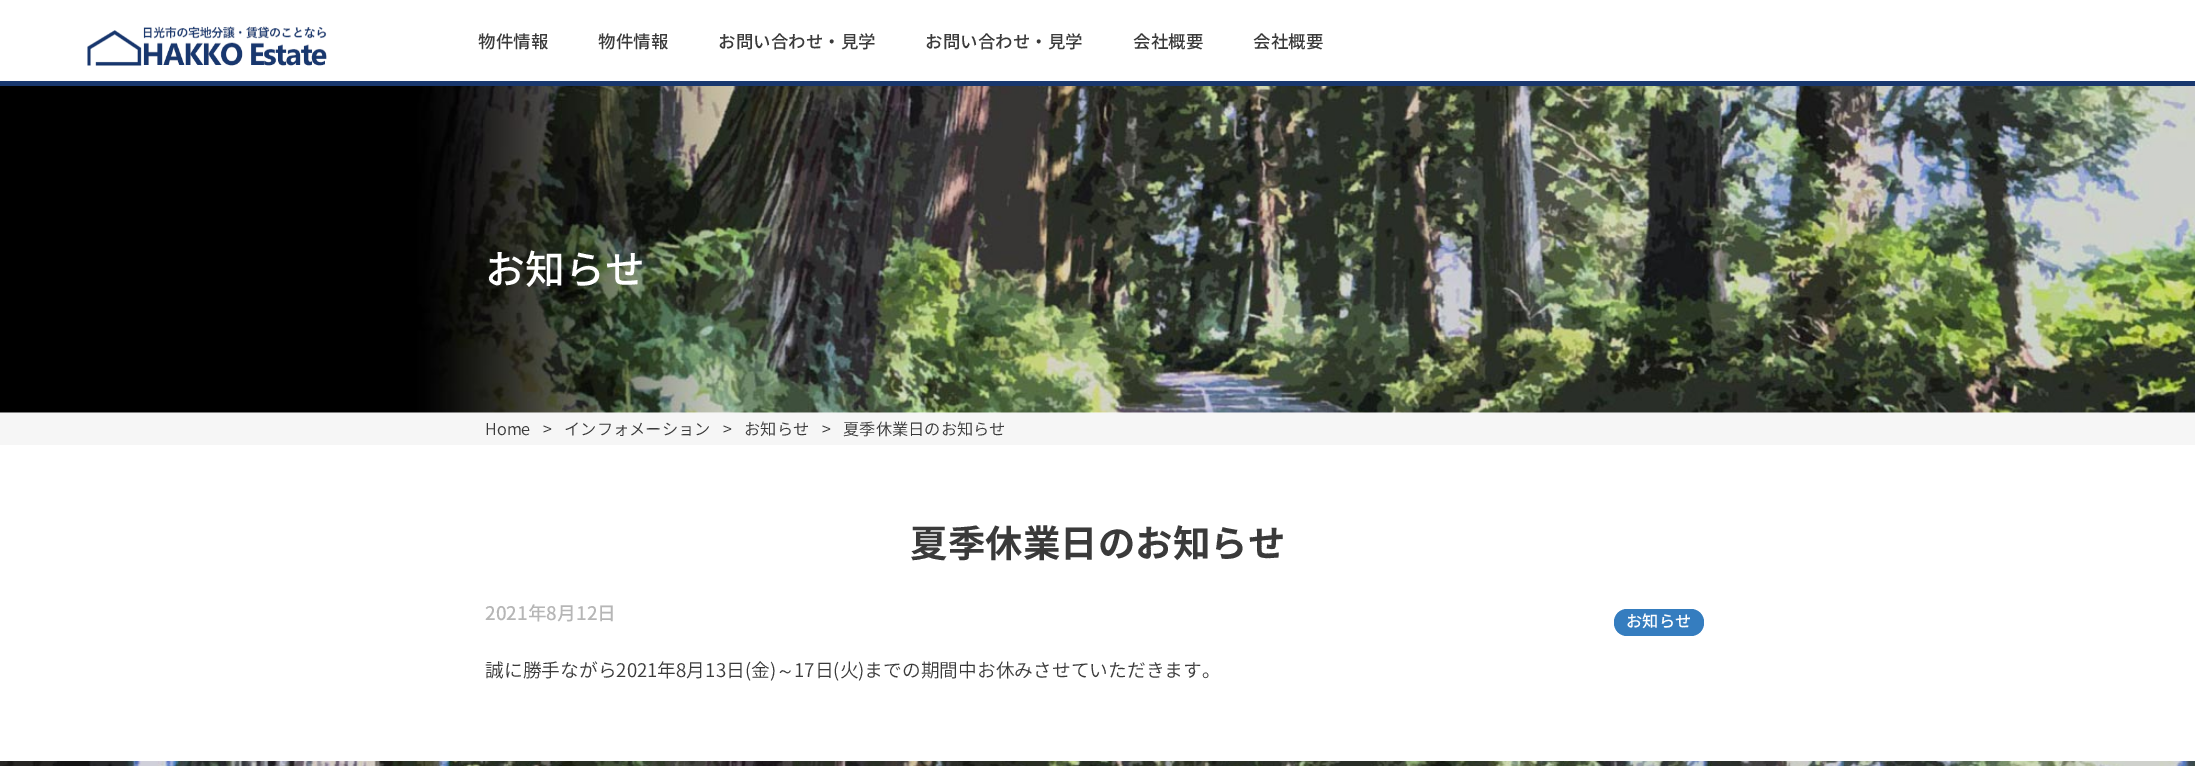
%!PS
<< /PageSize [2195 766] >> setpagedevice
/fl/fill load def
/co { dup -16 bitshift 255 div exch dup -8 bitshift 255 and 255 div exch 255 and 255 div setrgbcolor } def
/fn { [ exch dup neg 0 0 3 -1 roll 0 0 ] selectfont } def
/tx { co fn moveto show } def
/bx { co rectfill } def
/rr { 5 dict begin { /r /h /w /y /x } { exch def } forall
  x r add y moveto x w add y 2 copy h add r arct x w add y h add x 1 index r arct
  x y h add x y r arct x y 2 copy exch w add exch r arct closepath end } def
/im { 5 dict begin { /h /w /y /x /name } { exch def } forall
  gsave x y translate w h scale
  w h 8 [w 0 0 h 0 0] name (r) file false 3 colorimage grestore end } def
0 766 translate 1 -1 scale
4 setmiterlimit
0 0 2195 766 16#FFFFFF bx
0 81 2195 5 16#18376E bx
(media/1.raw) 87 26 240 40 im
(media/2.raw) 0 86 2195 327 im
0 413 2195 32 16#F6F6F6 bx
16#357DBF co
1614 609 90 27 13 rr fl
(media/3.raw) 0 761 2195 5 im
(物件情報) 478 48 /NotoSansJP-Medium 17.5 16#3A3A3A tx
(物件情報) 598 48 /NotoSansJP-Medium 17.5 16#3A3A3A tx
(お問い合わせ・見学) 718 48 /NotoSansJP-Medium 17.5 16#3A3A3A tx
(お問い合わせ・見学) 925 48 /NotoSansJP-Medium 17.5 16#3A3A3A tx
(会社概要) 1133 48 /NotoSansJP-Medium 17.5 16#3A3A3A tx
(会社概要) 1253 48 /NotoSansJP-Medium 17.5 16#3A3A3A tx
(お知らせ) 485 284 /NotoSansJP-Medium 40 16#FFFFFF tx
(Home) 485 435 /NotoSansJP-Light 16.25 16#3A3A3A tx
(>) 543 435 /NotoSansJP-Light 16.25 16#3A3A3A tx
(インフォメーション) 564 435 /NotoSansJP-Light 16.25 16#3A3A3A tx
(>) 723 435 /NotoSansJP-Light 16.25 16#3A3A3A tx
(お知らせ) 744 435 /NotoSansJP-Light 16.25 16#3A3A3A tx
(>) 822 435 /NotoSansJP-Light 16.25 16#3A3A3A tx
(夏季休業日のお知らせ) 843 435 /NotoSansJP-Light 16.25 16#3A3A3A tx
(夏季休業日のお知らせ) 910 557 /NotoSansJP-Bold 37.5 16#3A3A3A tx
(2021年8月12日) 485 620 /NotoSansJP-Medium 18.75 16#B6B6B6 tx
(お知らせ) 1626 627 /NotoSansJP-Medium 16.25 16#FFFFFF tx
(誠に勝手ながら2021年8月13日\(金\)) 485 677 /NotoSansJP-Light 18.75 16#3A3A3A tx
(～) 776 677 /WenQuanYiZenHei-Medium 18.75 16#3A3A3A tx
(17日\(火\)までの期間中お休みさせていただきます。) 794 677 /NotoSansJP-Light 18.75 16#3A3A3A tx
showpage
